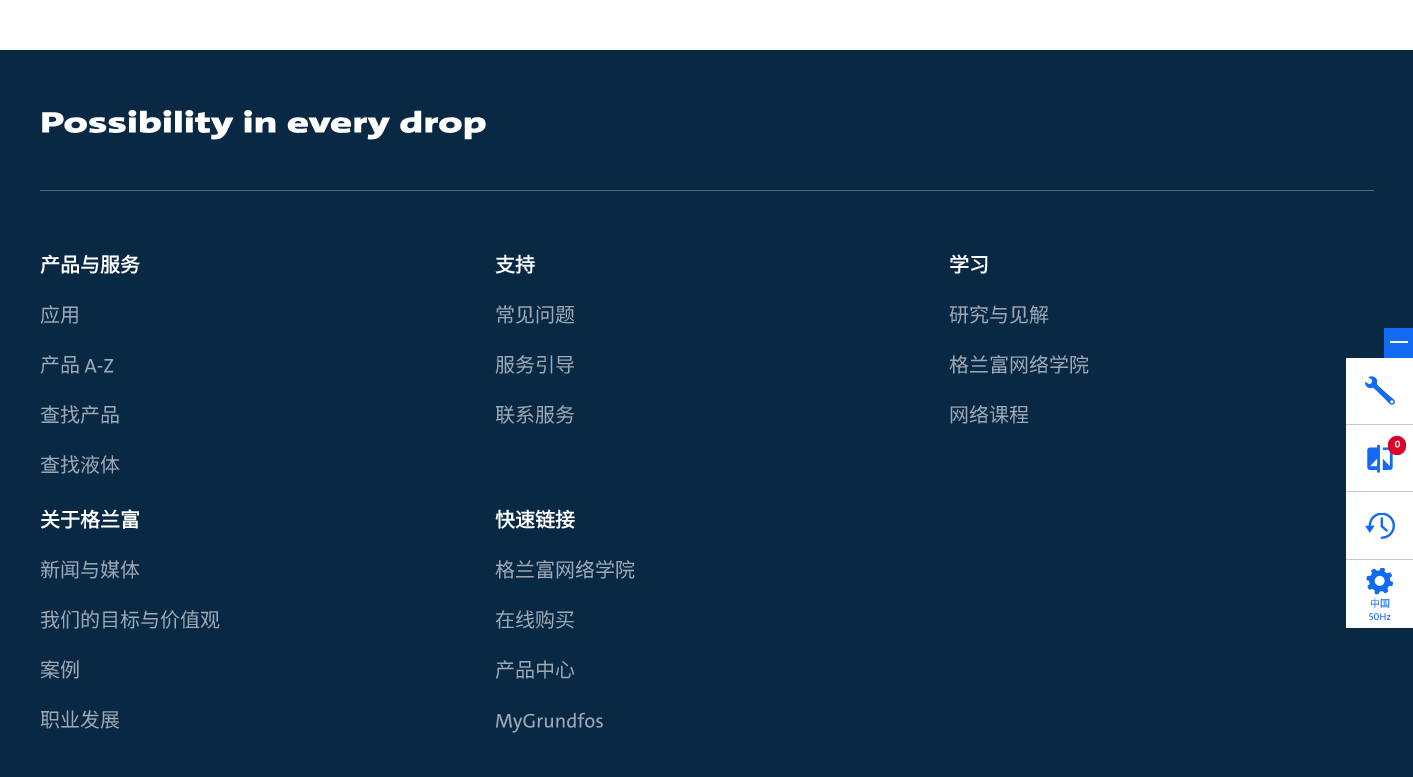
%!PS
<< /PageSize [1413 777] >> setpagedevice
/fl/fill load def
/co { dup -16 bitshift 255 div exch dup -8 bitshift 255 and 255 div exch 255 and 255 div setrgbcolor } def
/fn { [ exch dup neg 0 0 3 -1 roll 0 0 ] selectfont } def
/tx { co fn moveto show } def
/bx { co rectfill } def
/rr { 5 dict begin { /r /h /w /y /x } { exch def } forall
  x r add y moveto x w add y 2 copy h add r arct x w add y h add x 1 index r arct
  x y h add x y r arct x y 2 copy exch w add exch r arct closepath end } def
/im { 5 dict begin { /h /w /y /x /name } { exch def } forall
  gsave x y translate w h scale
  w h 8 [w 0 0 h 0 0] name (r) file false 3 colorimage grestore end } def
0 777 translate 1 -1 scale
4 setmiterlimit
0 0 1413 777 16#FFFFFF bx
0 50 1413 727 16#092844 bx
40 190 1334 1 16#53697C bx
(media/1.raw) 42 110 444 30 im
(media/2.raw) 84 359 30 14 im
(media/3.raw) 496 712 107 21 im
1384 328 29 30 16#126AF3 bx
1390 341 18 2 16#FFFFFF bx
1346 358 67 270 16#FFFFFF bx
1346 424 67 1 16#BFC8CF bx
(media/4.raw) 1365 376 30 29 im
1346 491 67 1 16#BFC8CF bx
(media/5.raw) 1367 444 26 29 im
16#DD0028 co
1388 436 18 19 9 rr fl
(media/6.raw) 1394 440 7 8 im
1346 559 67 1 16#BFC8CF bx
(media/7.raw) 1365 513 30 26 im
(media/8.raw) 1366 568 28 27 im
(media/9.raw) 1369 613 22 8 im
(产品与服务) 40 272 /NotoSansCJKSC-Bold 20 16#FFFFFF tx
(应用) 40 322 /NotoSansCJKSC-Regular 20 16#9CA9B5 tx
(产品) 40 372 /NotoSansCJKSC-Regular 20 16#9CA9B5 tx
(查找产品) 40 422 /NotoSansCJKSC-Regular 20 16#9CA9B5 tx
(查找液体) 40 472 /NotoSansCJKSC-Regular 20 16#9CA9B5 tx
(支持) 495 272 /NotoSansCJKSC-Bold 20 16#FFFFFF tx
(常见问题) 495 322 /NotoSansCJKSC-Regular 20 16#9CA9B5 tx
(服务引导) 495 372 /NotoSansCJKSC-Regular 20 16#9CA9B5 tx
(联系服务) 495 422 /NotoSansCJKSC-Regular 20 16#9CA9B5 tx
(学习) 949 272 /NotoSansCJKSC-Bold 20 16#FFFFFF tx
(研究与见解) 949 322 /NotoSansCJKSC-Regular 20 16#9CA9B5 tx
(格兰富网络学院) 949 372 /NotoSansCJKSC-Regular 20 16#9CA9B5 tx
(网络课程) 949 422 /NotoSansCJKSC-Regular 20 16#9CA9B5 tx
(关于格兰富) 40 527 /NotoSansCJKSC-Bold 20 16#FFFFFF tx
(新闻与媒体) 40 577 /NotoSansCJKSC-Regular 20 16#9CA9B5 tx
(我们的目标与价值观) 40 627 /NotoSansCJKSC-Regular 20 16#9CA9B5 tx
(案例) 40 677 /NotoSansCJKSC-Regular 20 16#9CA9B5 tx
(职业发展) 40 727 /NotoSansCJKSC-Regular 20 16#9CA9B5 tx
(快速链接) 495 527 /NotoSansCJKSC-Bold 20 16#FFFFFF tx
(格兰富网络学院) 495 577 /NotoSansCJKSC-Regular 20 16#9CA9B5 tx
(在线购买) 495 627 /NotoSansCJKSC-Regular 20 16#9CA9B5 tx
(产品中心) 495 677 /NotoSansCJKSC-Regular 20 16#9CA9B5 tx
(中国) 1370 607 /NotoSansCJKSC-Regular 10 16#126AF3 tx
showpage
